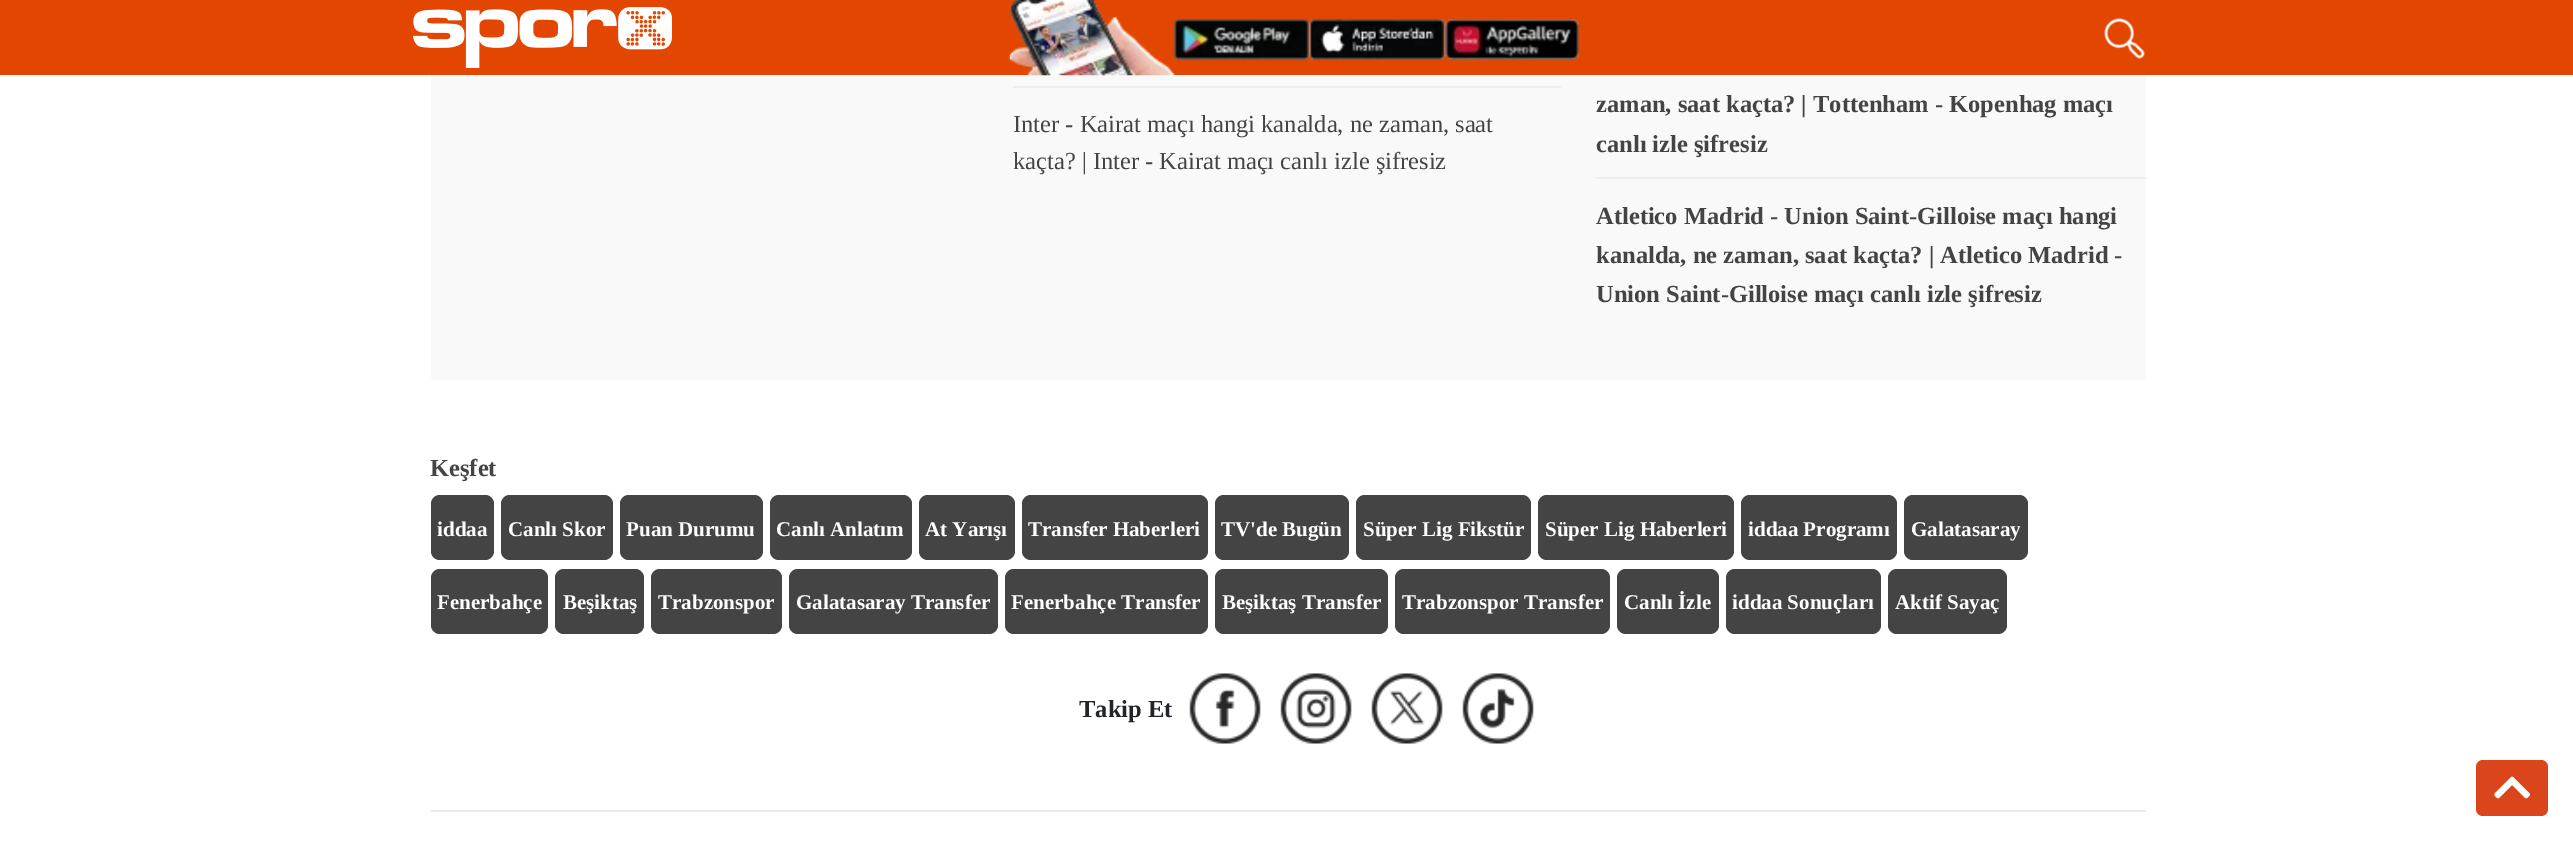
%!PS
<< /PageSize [2573 841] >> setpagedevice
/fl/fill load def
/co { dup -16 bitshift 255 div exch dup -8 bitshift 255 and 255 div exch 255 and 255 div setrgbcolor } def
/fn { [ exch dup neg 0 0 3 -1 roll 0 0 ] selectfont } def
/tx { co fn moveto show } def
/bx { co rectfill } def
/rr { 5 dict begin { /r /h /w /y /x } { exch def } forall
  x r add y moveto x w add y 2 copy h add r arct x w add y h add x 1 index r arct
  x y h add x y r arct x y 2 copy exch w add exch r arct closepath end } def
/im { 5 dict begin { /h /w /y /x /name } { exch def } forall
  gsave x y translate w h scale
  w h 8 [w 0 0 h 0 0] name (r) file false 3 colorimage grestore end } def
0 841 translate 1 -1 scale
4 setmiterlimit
0 0 2573 841 16#FFFFFF bx
0 0 2573 75 16#E34600 bx
(media/1.raw) 413 7 259 61 im
431 75 1715 305 16#F9F9F9 bx
(media/2.raw) 1009 0 166 76 im
(media/3.raw) 1173 19 137 42 im
(media/4.raw) 1309 19 137 41 im
(media/5.raw) 1445 19 134 42 im
(media/6.raw) 2104 18 41 41 im
1013 86 548 2 16#EEEEEE bx
1596 177 550 2 16#EEEEEE bx
16#444444 co
431 495 63 65 9 rr fl
501 495 112 65 9 rr fl
620 495 143 65 9 rr fl
770 495 142 65 9 rr fl
919 495 96 65 9 rr fl
1022 495 186 65 9 rr fl
1215 495 134 65 9 rr fl
1356 495 175 65 9 rr fl
1538 495 196 65 9 rr fl
1741 495 156 65 9 rr fl
1904 495 124 65 9 rr fl
431 569 117 65 9 rr fl
555 569 89 65 9 rr fl
651 569 131 65 9 rr fl
789 569 209 65 9 rr fl
1005 569 203 65 9 rr fl
1215 569 173 65 9 rr fl
1395 569 215 65 9 rr fl
1617 569 102 65 9 rr fl
1726 569 155 65 9 rr fl
1888 569 119 65 9 rr fl
(media/7.raw) 1189 673 72 71 im
(media/8.raw) 1280 673 72 71 im
(media/9.raw) 1371 673 72 71 im
(media/10.raw) 1462 673 72 71 im
431 810 1715 2 16#ECECEC bx
16#DA451B co
2476 760 72 56 7 rr fl
(media/11.raw) 2494 776 36 23 im
(Inter - Kairat maçı hangi kanalda, ne zaman, saat) 1013 132 /LiberationSerif-Regular 24.5 16#444444 tx
(kaçta? | Inter - Kairat maçı canlı izle şifresiz) 1013 169 /LiberationSerif-Regular 24.5 16#444444 tx
(zaman, saat kaçta? | Tottenham - Kopenhag maçı) 1596 112 /LiberationSerif-Bold 24.5 16#444444 tx
(canlı izle şifresiz) 1596 152 /LiberationSerif-Bold 24.5 16#444444 tx
(Atletico Madrid - Union Saint-Gilloise maçı hangi) 1596 224 /LiberationSerif-Bold 24.5 16#444444 tx
(kanalda, ne zaman, saat kaçta? | Atletico Madrid -) 1596 263 /LiberationSerif-Bold 24.5 16#444444 tx
(Union Saint-Gilloise maçı canlı izle şifresiz) 1596 302 /LiberationSerif-Bold 24.5 16#444444 tx
(Keşfet) 430 476 /LiberationSerif-Bold 24.5 16#444444 tx
(iddaa) 437 536 /LiberationSerif-Bold 21 16#FFFFFF tx
(Canlı Skor) 508 536 /LiberationSerif-Bold 21 16#FFFFFF tx
(Puan Durumu) 626 536 /LiberationSerif-Bold 21 16#FFFFFF tx
(Canlı Anlatım) 776 536 /LiberationSerif-Bold 21 16#FFFFFF tx
(At Yarışı) 925 536 /LiberationSerif-Bold 21 16#FFFFFF tx
(Transfer Haberleri) 1028 536 /LiberationSerif-Bold 21 16#FFFFFF tx
(TV'de Bugün) 1221 536 /LiberationSerif-Bold 21 16#FFFFFF tx
(Süper Lig Fikstür) 1363 536 /LiberationSerif-Bold 21 16#FFFFFF tx
(Süper Lig Haberleri) 1545 536 /LiberationSerif-Bold 21 16#FFFFFF tx
(iddaa Programı) 1748 536 /LiberationSerif-Bold 21 16#FFFFFF tx
(Galatasaray) 1911 536 /LiberationSerif-Bold 21 16#FFFFFF tx
(Fenerbahçe) 437 609 /LiberationSerif-Bold 21 16#FFFFFF tx
(Beşiktaş) 563 609 /LiberationSerif-Bold 21 16#FFFFFF tx
(Trabzonspor) 658 609 /LiberationSerif-Bold 21 16#FFFFFF tx
(Galatasaray Transfer) 796 609 /LiberationSerif-Bold 21 16#FFFFFF tx
(Fenerbahçe Transfer) 1011 609 /LiberationSerif-Bold 21 16#FFFFFF tx
(Beşiktaş Transfer) 1222 609 /LiberationSerif-Bold 21 16#FFFFFF tx
(Trabzonspor Transfer) 1402 609 /LiberationSerif-Bold 21 16#FFFFFF tx
(Canlı İzle) 1624 609 /LiberationSerif-Bold 21 16#FFFFFF tx
(iddaa Sonuçları) 1732 609 /LiberationSerif-Bold 21 16#FFFFFF tx
(Aktif Sayaç) 1895 609 /LiberationSerif-Bold 21 16#FFFFFF tx
(Takip Et) 1079 717 /LiberationSerif-Bold 24.5 16#212529 tx
showpage
